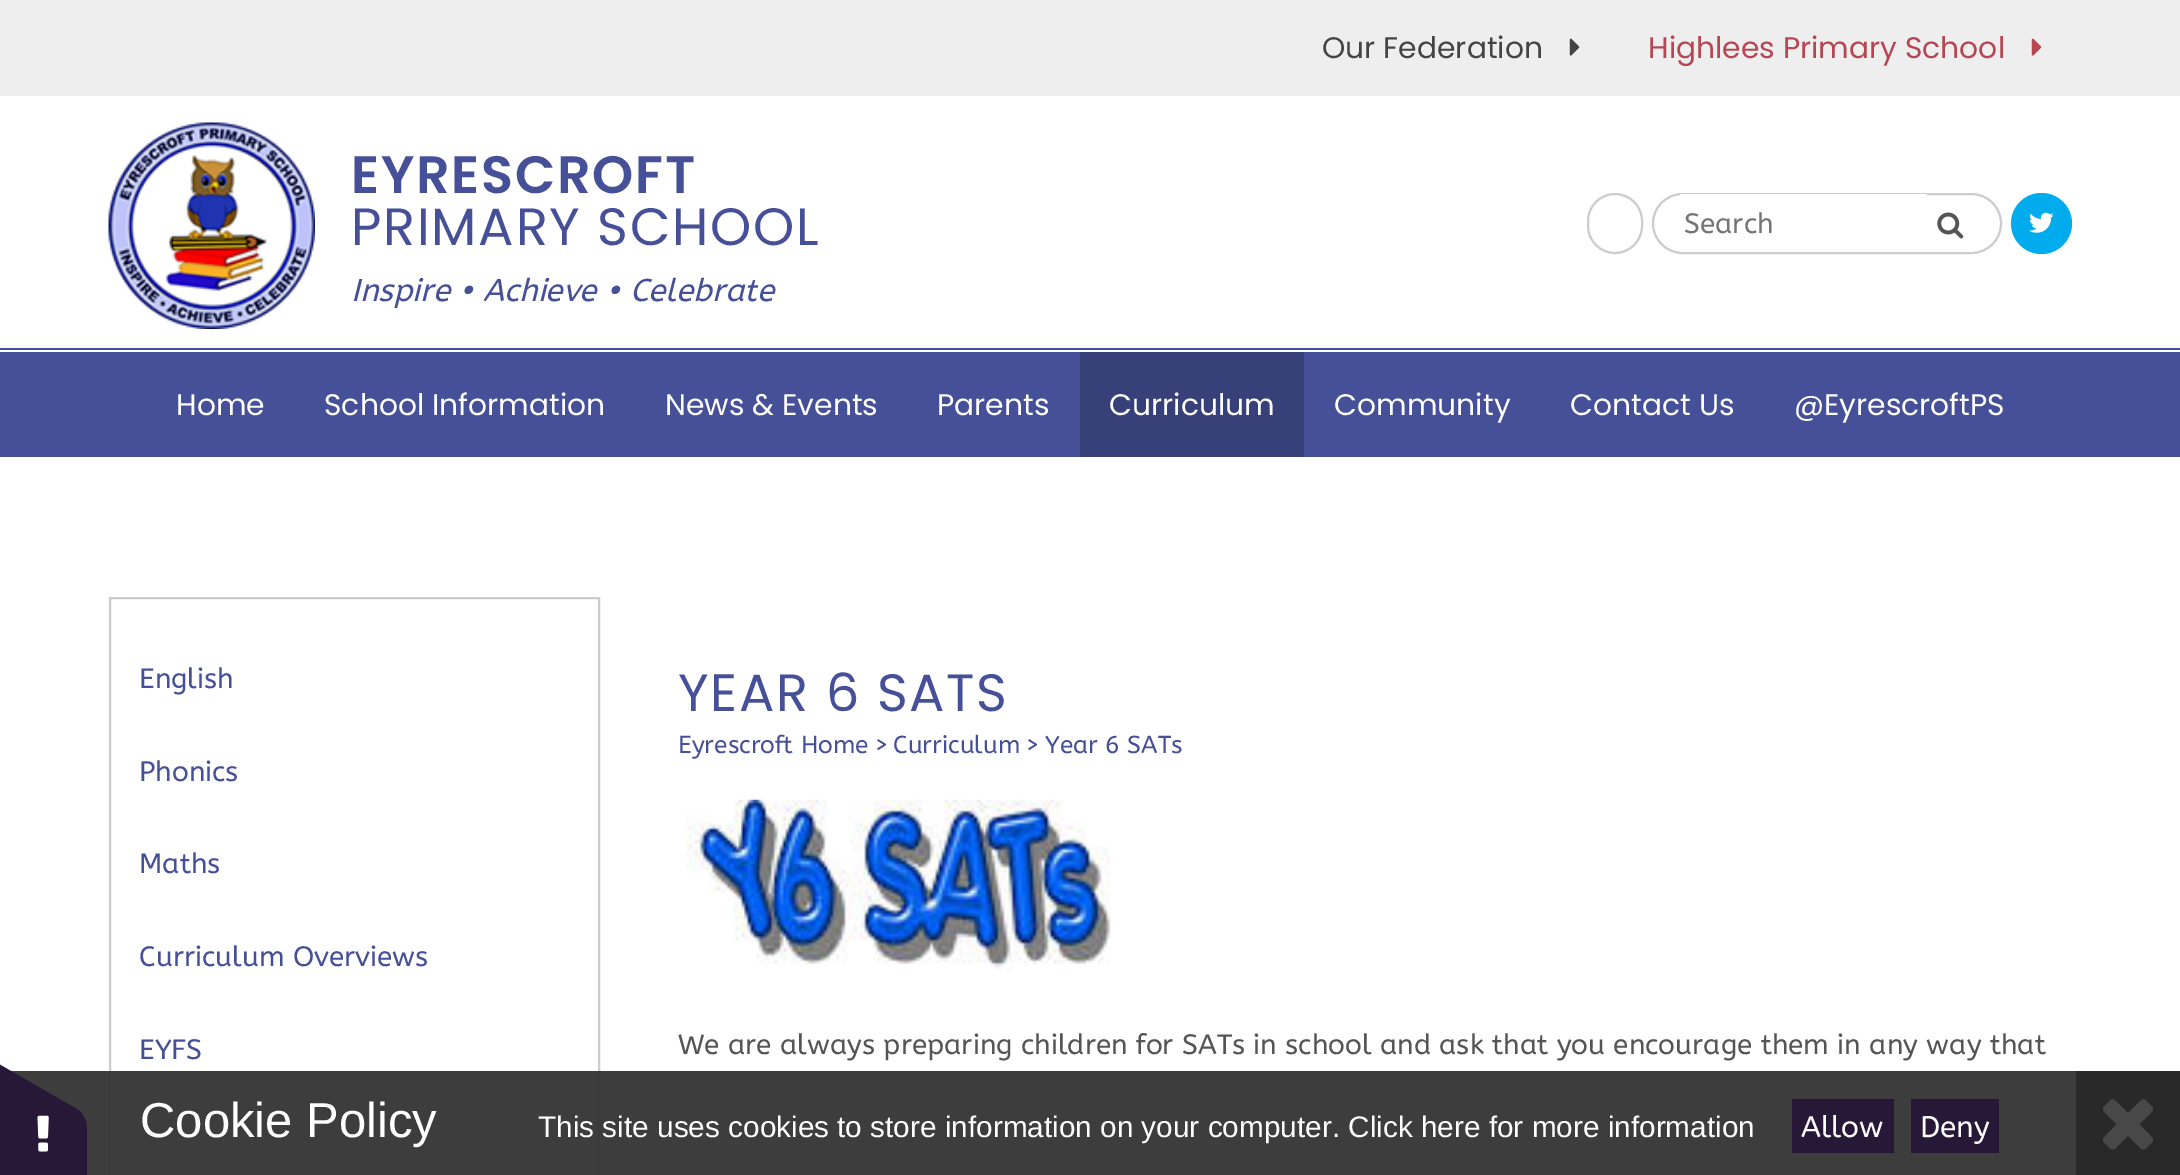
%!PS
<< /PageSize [2180 1175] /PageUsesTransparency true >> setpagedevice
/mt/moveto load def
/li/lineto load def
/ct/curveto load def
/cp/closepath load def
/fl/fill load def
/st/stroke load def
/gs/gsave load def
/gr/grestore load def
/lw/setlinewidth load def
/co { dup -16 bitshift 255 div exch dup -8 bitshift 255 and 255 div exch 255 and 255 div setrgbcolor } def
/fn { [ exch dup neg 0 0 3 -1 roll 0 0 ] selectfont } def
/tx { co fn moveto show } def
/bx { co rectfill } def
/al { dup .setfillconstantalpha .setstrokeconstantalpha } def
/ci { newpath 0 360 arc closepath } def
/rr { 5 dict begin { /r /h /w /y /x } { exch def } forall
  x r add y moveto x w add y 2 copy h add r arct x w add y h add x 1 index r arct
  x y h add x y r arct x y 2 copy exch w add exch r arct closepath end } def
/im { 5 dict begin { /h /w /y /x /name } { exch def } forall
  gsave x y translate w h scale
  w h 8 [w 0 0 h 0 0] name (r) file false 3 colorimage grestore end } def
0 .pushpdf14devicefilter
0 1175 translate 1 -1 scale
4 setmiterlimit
0 0 2180 1175 16#FFFFFF bx
0 0 2180 96 16#EEEEEE bx
(media/1.raw) 1569 38 11 18 im
(media/2.raw) 2031 38 11 18 im
0 348 2180 2 16#465098 bx
(media/3.raw) 108 122 207 207 im
16#CCCCCC co
2 lw
1588 194 54 59 27 rr st
1653 194 348 59 29.5 rr st
gs
1654 194 346 58 29 rr clip newpath
1680 194 247 58 16#FFFFFF bx
gr
(media/4.raw) 1937 212 27 27 im
16#00ACED co
2041.5 223.5 30.5 ci fl
(media/5.raw) 2029 212 25 21 im
0 352 2180 105 16#465098 bx
1080 352 224 105 16#38407A bx
16#CCCCCC co
110 598 489 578 rectstroke
(media/6.raw) 686 799 425 173 im
0.95 al
11 1071 2065 104 16#333333 bx
1 al
16#281838 co
87 1129 mt 87 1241 li 87 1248 84 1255 80 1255 ct -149 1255 li -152 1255 -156 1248 -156 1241 ct -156 1129 li -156 1121 -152 1115 -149 1115 ct 80 1115 li 84 1115 87 1121 87 1129 ct cp fl
-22 1052 mt 75 1108 li 82 1111 85 1117 83 1121 ct -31 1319 li -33 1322 -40 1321 -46 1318 ct -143 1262 li -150 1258 -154 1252 -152 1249 ct -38 1051 li -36 1047 -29 1048 -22 1052 ct cp fl
(media/7.raw) 37 1115 12 37 im
1792 1099 102 54 16#281838 bx
1911 1099 88 54 16#281838 bx
2076 1071 104 104 16#292929 bx
(media/8.raw) 2103 1099 50 51 im
(Our Federation) 1322 58 /Poppins-Regular 29.75 16#444444 tx
(Highlees Primary School) 1648 58 /Poppins-Regular 29.75 16#B54652 tx
/Poppins-SemiBold 52.5 fn
16#465098 co
351 193 mt 1.75 0 (EYRESCROFT) ashow
/Poppins-Regular 52.5 fn
351 245 mt 1.75 0 (PRIMARY SCHOOL) ashow
(Inspire • Achieve • Celebrate) 351 301 /ABeeZee-Italic 31.5 16#465098 tx
(Search) 1684 233 /ABeeZee-Regular 28 16#757575 tx
(Home) 176 415 /Poppins-Regular 29.75 16#FFFFFF tx
(School Information) 324 415 /Poppins-Regular 29.75 16#FFFFFF tx
(News & Events) 665 415 /Poppins-Regular 29.75 16#FFFFFF tx
(Parents) 937 415 /Poppins-Regular 29.75 16#FFFFFF tx
(Curriculum) 1109 415 /Poppins-Regular 29.75 16#FFFFFF tx
(Community) 1334 415 /Poppins-Regular 29.75 16#FFFFFF tx
(Contact Us) 1570 415 /Poppins-Regular 29.75 16#FFFFFF tx
(@EyrescroftPS) 1794 415 /Poppins-Regular 29.75 16#FFFFFF tx
(English) 139 688 /ABeeZee-Regular 28 16#465098 tx
(Phonics) 139 781 /ABeeZee-Regular 28 16#465098 tx
(Maths) 139 873 /ABeeZee-Regular 28 16#465098 tx
(Curriculum Overviews) 139 966 /ABeeZee-Regular 28 16#465098 tx
(EYFS) 139 1059 /ABeeZee-Regular 28 16#465098 tx
/Poppins-Regular 52.5 fn
678 711 mt 1.75 0 (YEAR 6 SATS) ashow
(Eyrescroft Home) 678 753 /ABeeZee-Regular 24.5 16#465098 tx
(>) 874 753 /ABeeZee-Regular 24.5 16#465098 tx
(Curriculum) 893 753 /ABeeZee-Regular 24.5 16#465098 tx
(>) 1025 753 /ABeeZee-Regular 24.5 16#465098 tx
(Year 6 SATs) 1045 753 /ABeeZee-Regular 24.5 16#465098 tx
(We are always preparing children for SATs in school and ask that you encourage them in any way that) 678 1054 /ABeeZee-Regular 28 16#555555 tx
(Cookie Policy) 140 1137 /LiberationSans-Regular 49 16#FFFFFF tx
(This site uses cookies to store information on your computer. Click here for more information) 538 1137 /LiberationSans-Regular 29.75 16#FFFFFF tx
(Allow) 1801 1137 /ABeeZee-Regular 29.75 16#FFFFFF tx
(Deny) 1920 1137 /ABeeZee-Regular 29.75 16#FFFFFF tx
.poppdf14devicefilter showpage
